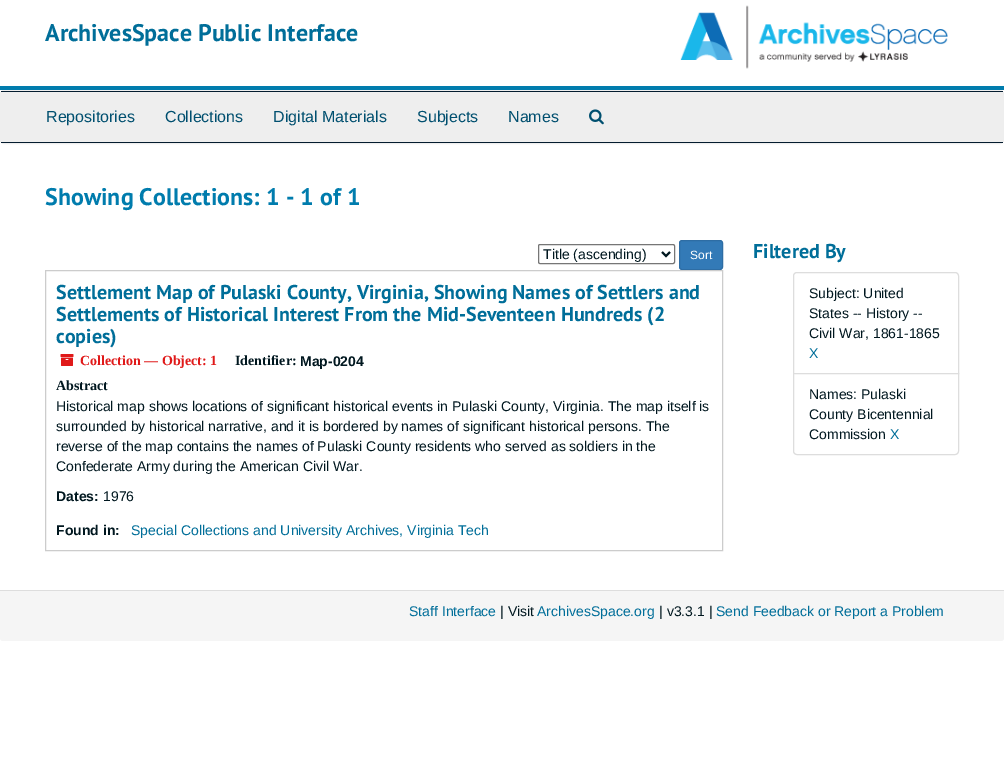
%!PS
<< /PageSize [1004 766] >> setpagedevice
/mt/moveto load def
/li/lineto load def
/ct/curveto load def
/cp/closepath load def
/fl/fill load def
/st/stroke load def
/gs/gsave load def
/gr/grestore load def
/lw/setlinewidth load def
/co { dup -16 bitshift 255 div exch dup -8 bitshift 255 and 255 div exch 255 and 255 div setrgbcolor } def
/fn { [ exch dup neg 0 0 3 -1 roll 0 0 ] selectfont } def
/tx { co fn moveto show } def
/bx { co rectfill } def
/rr { 5 dict begin { /r /h /w /y /x } { exch def } forall
  x r add y moveto x w add y 2 copy h add r arct x w add y h add x 1 index r arct
  x y h add x y r arct x y 2 copy exch w add exch r arct closepath end } def
/im { 5 dict begin { /h /w /y /x /name } { exch def } forall
  gsave x y translate w h scale
  w h 8 [w 0 0 h 0 0] name (r) file false 3 colorimage grestore end } def
0 766 translate 1 -1 scale
4 setmiterlimit
0 0 1004 766 16#FFFFFF bx
0 86 1004 4 16#007CAD bx
(media/1.raw) 680 5 268 64 im
16#EEEEEE co
.5 90.5 1003 53 3.5 rr gs fl gr
st
1 91 1002 1 16#041C2F bx
1 142 1002 1 16#041C2F bx
(media/2.raw) 589 109 15 16 im
16#767676 co
538.5 244.5 136 19 1.5 rr st
16#00171F co
2 lw
662 252 mt 666 256 li 670 252 li st
16#337AB7 co
679.5 240.5 43 29 2.5 rr gs fl gr
16#2E6DA4 co
1 lw
st
16#CCCCCC co
45.5 270.5 677 280 rectstroke
(media/3.raw) 60 354 14 12 im
16#DDDDDD co
797 272.5 mt 955 272.5 li 957 272.5 958.5 274 958.5 276 ct 958.5 373.5 li 793.5 373.5 li 793.5 276 li 793.5 274 795 272.5 797 272.5 ct cp st
16#FFFFFF co
793.5 373.5 mt 958.5 373.5 li 958.5 451 li 958.5 453 957 454.5 955 454.5 ct 797 454.5 li 795 454.5 793.5 453 793.5 451 ct cp gs fl gr
16#DDDDDD co
st
16#F5F5F5 co
0 590 mt 1004 590 li 1004 638 li 1004 639.5 1002.5 641 1001 641 ct 3 641 li 1.5 641 0 639.5 0 638 ct cp fl
0 590 1004 1 16#DDDDDD bx
(ArchivesSpace Public Interface) 45 41 /PTSans-Bold 24 16#006E99 tx
(Repositories) 46 122 /LiberationSans-Regular 16 16#004F6F tx
(Collections) 165 122 /LiberationSans-Regular 16 16#004F6F tx
(Digital Materials) 273 122 /LiberationSans-Regular 16 16#004F6F tx
(Subjects) 417 122 /LiberationSans-Regular 16 16#004F6F tx
(Names) 508 122 /LiberationSans-Regular 16 16#004F6F tx
(Showing Collections: 1 - 1 of 1) 45 205 /PTSans-Bold 24 16#007CAD tx
(Title \(ascending\)) 543 259 /LiberationSans-Regular 14 16#00171F tx
(Sort) 690 259 /LiberationSans-Regular 12 16#FFFFFF tx
(Settlement Map of Pulaski County, Virginia, Showing Names of Settlers and) 56 299 /PTSans-Bold 20 16#006E99 tx
(Settlements of Historical Interest From the Mid-Seventeen Hundreds \(2) 56 321 /PTSans-Bold 20 16#006E99 tx
(copies\)) 56 343 /PTSans-Bold 20 16#006E99 tx
(Collection — Object: 1) 80 365 /LiberationSerif-Bold 14 16#E01919 tx
(Identifier:) 235 365 /LiberationSerif-Bold 14 16#00171F tx
(Map-0204) 300 366 /LiberationSans-Bold 14 16#00171F tx
(Abstract) 56 390 /LiberationSerif-Bold 14 16#00171F tx
(Historical map shows locations of significant historical events in Pulaski County, Virginia. The map itself is) 56 411 /LiberationSans-Regular 14 16#00171F tx
(surrounded by historical narrative, and it is bordered by names of significant historical persons. The) 56 431 /LiberationSans-Regular 14 16#00171F tx
(reverse of the map contains the names of Pulaski County residents who served as soldiers in the) 56 451 /LiberationSans-Regular 14 16#00171F tx
(Confederate Army during the American Civil War.) 56 471 /LiberationSans-Regular 14 16#00171F tx
(Dates:) 56 501 /LiberationSans-Bold 14 16#00171F tx
(1976) 103 501 /LiberationSans-Regular 14 16#00171F tx
(Found in:) 56 535 /LiberationSans-Bold 14 16#00171F tx
(Special Collections and University Archives, Virginia Tech) 131 535 /LiberationSans-Regular 14 16#006E99 tx
(Filtered By) 753 258 /PTSans-Bold 20 16#006E99 tx
(Subject: United) 809 298 /LiberationSans-Regular 14 16#00171F tx
(States -- History --) 809 318 /LiberationSans-Regular 14 16#00171F tx
(Civil War, 1861-1865) 809 338 /LiberationSans-Regular 14 16#00171F tx
(X) 809 358 /LiberationSans-Regular 14 16#006E99 tx
(Names: Pulaski) 809 399 /LiberationSans-Regular 14 16#00171F tx
(County Bicentennial) 809 419 /LiberationSans-Regular 14 16#00171F tx
(Commission) 809 439 /LiberationSans-Regular 14 16#00171F tx
(X) 890 439 /LiberationSans-Regular 14 16#006E99 tx
(Staff Interface) 409 616 /LiberationSans-Regular 14 16#006E99 tx
(| Visit) 500 616 /LiberationSans-Regular 14 16#00171F tx
(ArchivesSpace.org) 537 616 /LiberationSans-Regular 14 16#006E99 tx
(| v3.3.1 |) 659 616 /LiberationSans-Regular 14 16#00171F tx
(Send Feedback or Report a Problem) 716 616 /LiberationSans-Regular 14 16#006E99 tx
showpage
